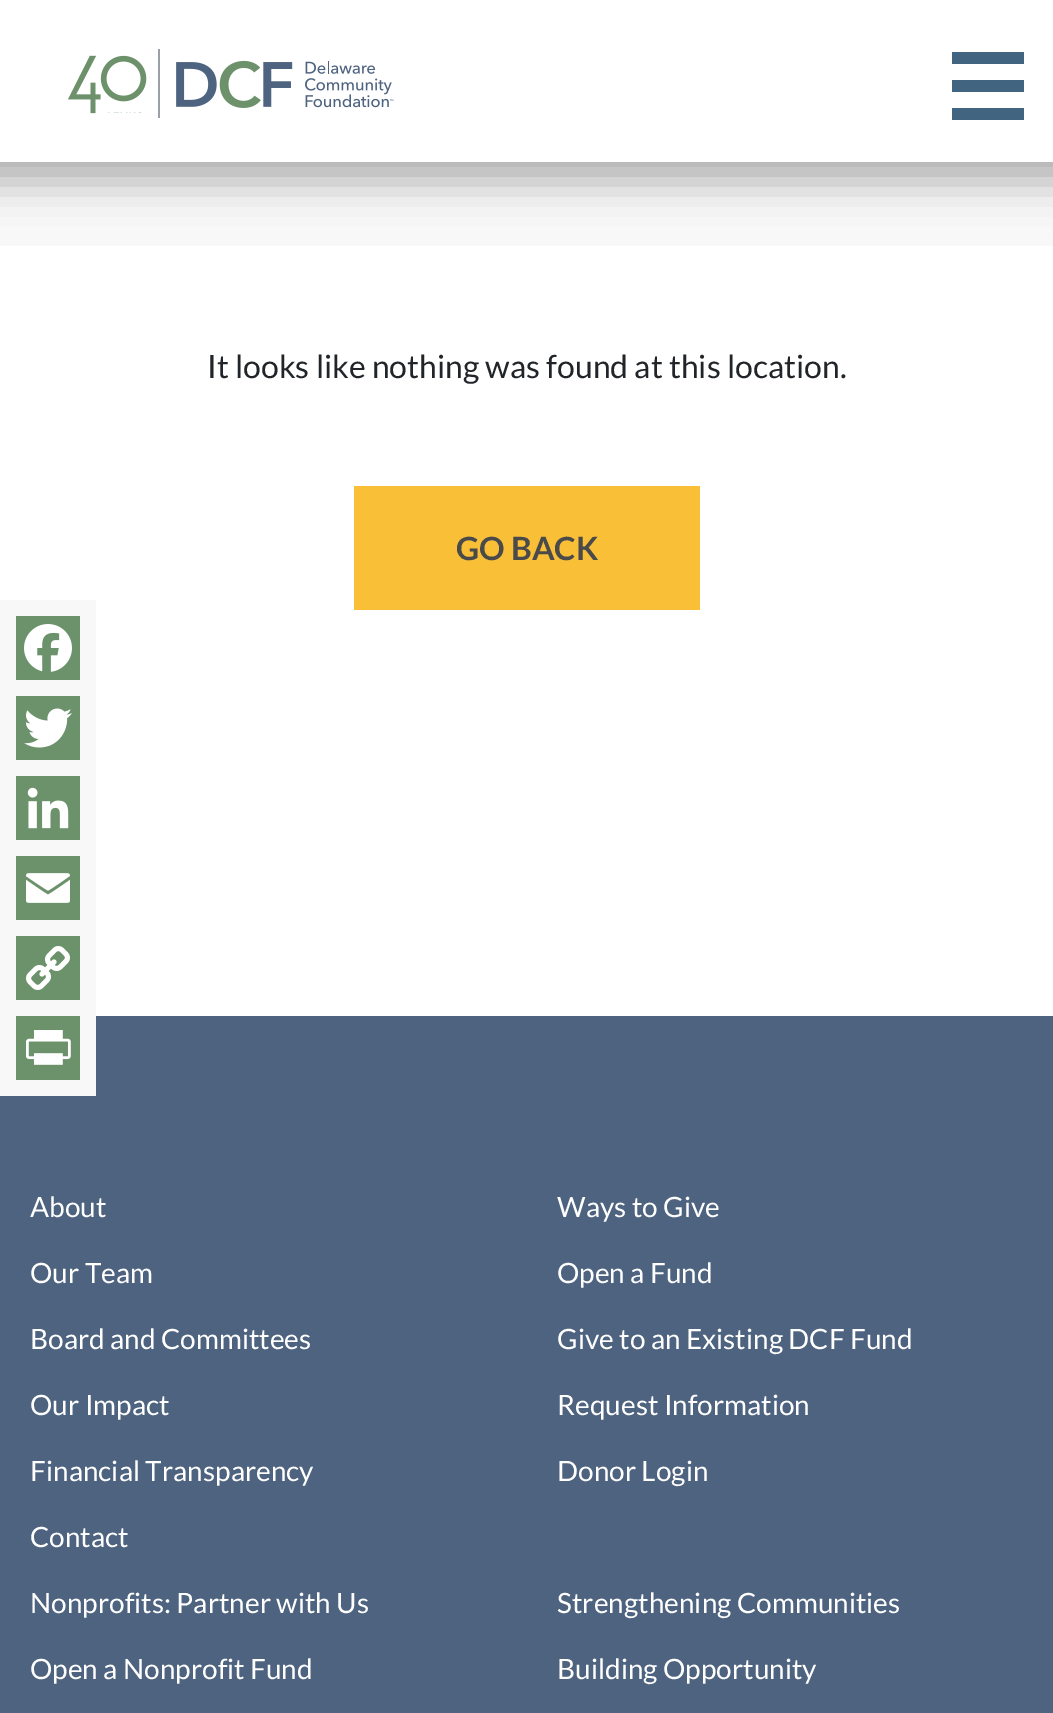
%!PS
<< /PageSize [1053 1713] /PageUsesTransparency true >> setpagedevice
/co { dup -16 bitshift 255 div exch dup -8 bitshift 255 and 255 div exch 255 and 255 div setrgbcolor } def
/fn { [ exch dup neg 0 0 3 -1 roll 0 0 ] selectfont } def
/tx { co fn moveto show } def
/bx { co rectfill } def
/al { dup .setfillconstantalpha .setstrokeconstantalpha } def
/rr { 5 dict begin { /r /h /w /y /x } { exch def } forall
  x r add y moveto x w add y 2 copy h add r arct x w add y h add x 1 index r arct
  x y h add x y r arct x y 2 copy exch w add exch r arct closepath end } def
/sh { 12 dict begin { /a /b /q /h /w /y /x } { exch def } forall gsave /was 0 def
  9 -2 -9 { dup b mul 4 div /e exch def 1 sub .425 mul 2.718 exch exp 1 add a .99 .min exch div /now exch def
    1 1 now sub 1 was sub div sub al /was now def
    w h .min e 2 mul add 0 gt { x e sub y e sub w e 2 mul add h e 2 mul add
      q e add b .6 mul add w h .min 2 div e add .min 0 .max rr fill } if } for grestore end } def
/im { 5 dict begin { /h /w /y /x /name } { exch def } forall
  gsave x y translate w h scale
  w h 8 [w 0 0 h 0 0] name (r) file false 3 colorimage grestore end } def
0 .pushpdf14devicefilter
0 1713 translate 1 -1 scale
4 setmiterlimit
0 0 1053 1713 16#FFFFFF bx
0 162 1053 84 16#F8F8F8 bx
16#676767 co
-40 -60 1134 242 0 20 .5 sh
0 0 1053 162 16#FFFFFF bx
(media/1.raw) 68 49 326 69 im
952 80 72 12 16#416480 bx
952 52 72 12 16#416480 bx
952 108 72 12 16#416480 bx
354 486 346 124 16#F9C037 bx
0 1016 1053 697 16#4E637F bx
0 600 96 496 16#F8F8F8 bx
16 616 64 64 16#6C926C bx
(media/2.raw) 24 624 48 48 im
16 696 64 64 16#6C926C bx
(media/3.raw) 24 708 48 40 im
16 776 64 64 16#6C926C bx
(media/4.raw) 27 787 42 42 im
16 856 64 64 16#6C926C bx
(media/5.raw) 26 873 44 30 im
16 936 64 64 16#6C926C bx
(media/6.raw) 26 946 44 44 im
16 1016 64 64 16#6C926C bx
(media/7.raw) 26 1030 45 35 im
(It looks like nothing was found at this location.) 207 378 /Lato-Regular 32 16#212529 tx
(GO BACK) 456 560 /Lato-Bold 32 16#4A4A4A tx
(About) 30 1217 /Lato-Regular 28 16#FFFFFF tx
(Our Team) 30 1283 /Lato-Regular 28 16#FFFFFF tx
(Board and Committees) 30 1349 /Lato-Regular 28 16#FFFFFF tx
(Our Impact) 30 1415 /Lato-Regular 28 16#FFFFFF tx
(Financial Transparency) 30 1481 /Lato-Regular 28 16#FFFFFF tx
(Contact) 30 1547 /Lato-Regular 28 16#FFFFFF tx
(Ways to Give) 557 1217 /Lato-Regular 28 16#FFFFFF tx
(Open a Fund) 557 1283 /Lato-Regular 28 16#FFFFFF tx
(Give to an Existing DCF Fund) 557 1349 /Lato-Regular 28 16#FFFFFF tx
(Request Information) 557 1415 /Lato-Regular 28 16#FFFFFF tx
(Donor Login) 557 1481 /Lato-Regular 28 16#FFFFFF tx
(Nonprofits: Partner with Us) 30 1613 /Lato-Regular 28 16#FFFFFF tx
(Open a Nonprofit Fund) 30 1679 /Lato-Regular 28 16#FFFFFF tx
(Strengthening Communities) 557 1613 /Lato-Regular 28 16#FFFFFF tx
(Building Opportunity) 557 1679 /Lato-Regular 28 16#FFFFFF tx
.poppdf14devicefilter showpage
